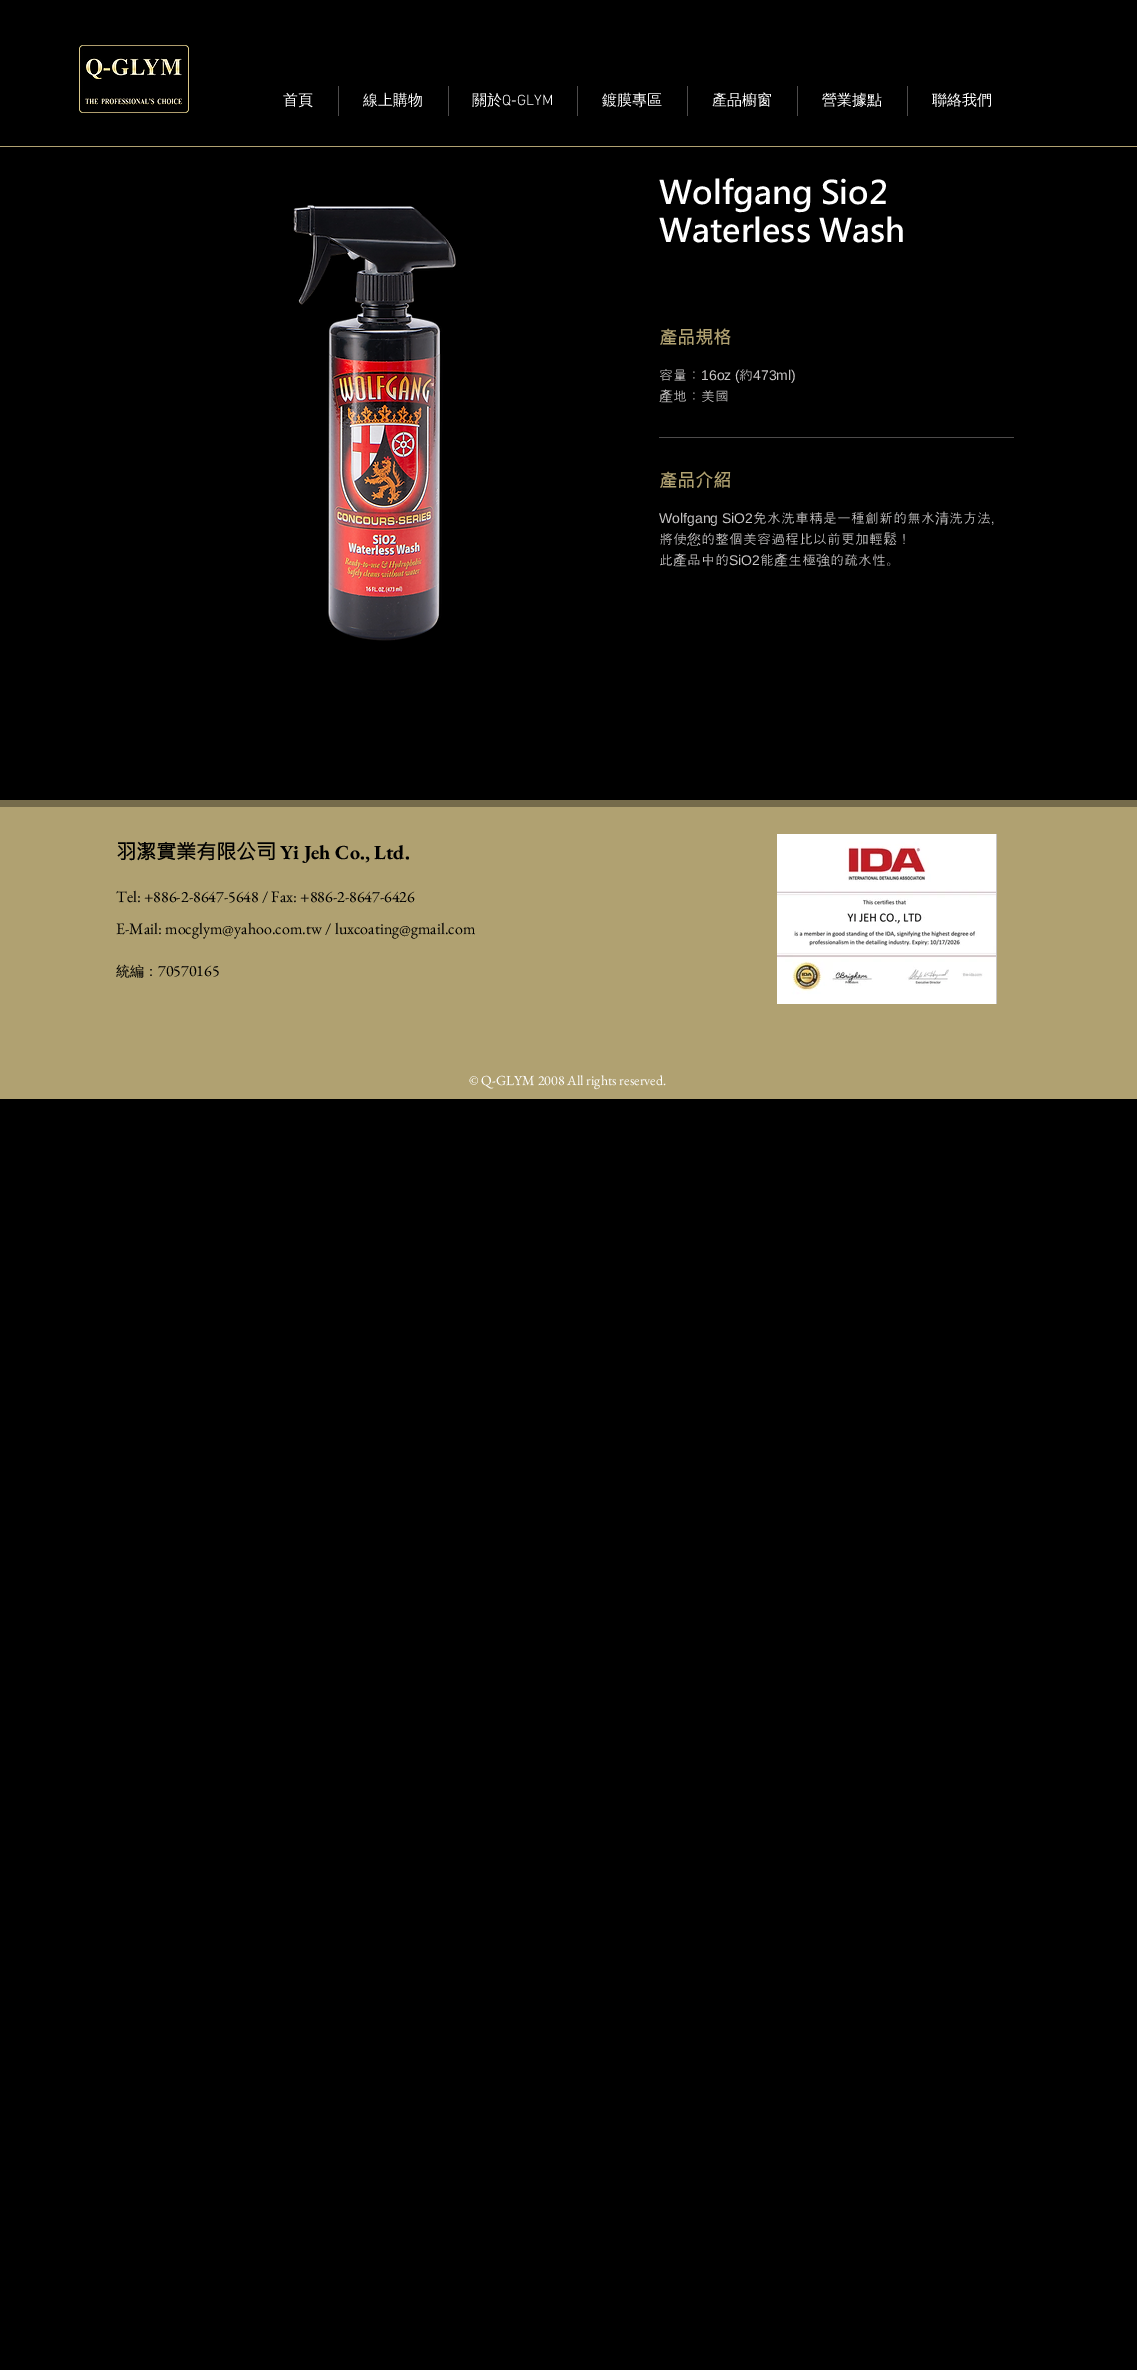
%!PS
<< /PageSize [1137 2370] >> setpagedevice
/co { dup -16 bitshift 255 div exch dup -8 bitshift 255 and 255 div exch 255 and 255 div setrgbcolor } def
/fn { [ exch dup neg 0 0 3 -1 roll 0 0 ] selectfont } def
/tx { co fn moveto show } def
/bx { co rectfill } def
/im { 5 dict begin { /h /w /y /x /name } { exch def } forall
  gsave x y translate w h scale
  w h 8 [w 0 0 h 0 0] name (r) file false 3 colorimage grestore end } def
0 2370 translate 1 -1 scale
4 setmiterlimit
0 0 1137 2370 16#000000 bx
(media/1.raw) 79 45 110 68 im
338 86 1 30 16#4D4B4B bx
448 86 1 30 16#4D4B4B bx
577 86 1 30 16#4D4B4B bx
687 86 1 30 16#4D4B4B bx
797 86 1 30 16#4D4B4B bx
907 86 1 30 16#4D4B4B bx
0 146 1137 1 16#B0A171 bx
(media/2.raw) 293 205 163 436 im
659 437 355 1 16#4D4B4B bx
0 807 1137 292 16#B0A171 bx
0 800 1137 7 16#756B4B bx
996 834 1 170 16#C7C5C5 bx
(media/3.raw) 777 834 219 170 im
(首頁) 283 105 /WenQuanYiZenHei-Medium 15 16#FFFFFF tx
(線上購物) 363 105 /WenQuanYiZenHei-Medium 15 16#FFFFFF tx
(關於) 472 105 /WenQuanYiZenHei-Medium 15 16#FFFFFF tx
(Q-GLYM) 502 105 /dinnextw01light-Light 15 16#FFFFFF tx
(鍍膜專區) 602 105 /WenQuanYiZenHei-Medium 15 16#FFFFFF tx
(產品櫥窗) 712 105 /WenQuanYiZenHei-Medium 15 16#FFFFFF tx
(營業據點) 822 105 /WenQuanYiZenHei-Medium 15 16#FFFFFF tx
(聯絡我們) 932 105 /WenQuanYiZenHei-Medium 15 16#FFFFFF tx
(Wolfgang Sio2) 659 204 /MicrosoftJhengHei-Bold 32 16#FFFFFF tx
(Waterless Wash) 659 242 /MicrosoftJhengHei-Bold 32 16#FFFFFF tx
(產品規格) 659 344 /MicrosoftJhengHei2-Bold 18 16#B0A171 tx
(容量：) 659 380 /Dotum-Regular 14 16#C7C5C5 tx
(16oz \() 701 380 /LiberationSans-Regular 14 16#C7C5C5 tx
(約) 739 380 /Dotum-Regular 14 16#C7C5C5 tx
(473ml\)) 753 380 /LiberationSans-Regular 14 16#C7C5C5 tx
(產) 659 401 /WenQuanYiZenHei-Medium 14 16#C7C5C5 tx
(地：美國) 673 401 /Dotum-Regular 14 16#C7C5C5 tx
(產品介紹) 659 487 /MicrosoftJhengHei2-Bold 18 16#B0A171 tx
(Wolfgang SiO2) 659 523 /LiberationSans-Regular 14 16#C7C5C5 tx
(免水洗車精是一種創新的無水) 753 523 /Dotum-Regular 14 16#C7C5C5 tx
(清) 935 523 /WenQuanYiZenHei-Medium 14 16#C7C5C5 tx
(洗方法，) 949 523 /Dotum-Regular 14 16#C7C5C5 tx
(將使) 659 544 /Dotum-Regular 14 16#C7C5C5 tx
(您) 687 544 /WenQuanYiZenHei-Medium 14 16#C7C5C5 tx
(的整個美容過程比以前更加輕鬆！) 701 544 /Dotum-Regular 14 16#C7C5C5 tx
(此) 659 565 /Dotum-Regular 14 16#C7C5C5 tx
(產) 673 565 /WenQuanYiZenHei-Medium 14 16#C7C5C5 tx
(品中的) 687 565 /Dotum-Regular 14 16#C7C5C5 tx
(SiO2) 729 565 /LiberationSans-Regular 14 16#C7C5C5 tx
(能) 760 565 /Dotum-Regular 14 16#C7C5C5 tx
(產) 774 565 /WenQuanYiZenHei-Medium 14 16#C7C5C5 tx
(生極) 788 565 /Dotum-Regular 14 16#C7C5C5 tx
(強) 816 565 /WenQuanYiZenHei-Medium 14 16#C7C5C5 tx
(的疏水性。) 830 565 /Dotum-Regular 14 16#C7C5C5 tx
(羽潔實業有限公司) 116 859 /MicrosoftJhengHei2-Bold 20 16#000000 tx
(Yi Jeh Co., Ltd.) 280 859 /EBGaramond-Bold 20 16#000000 tx
(Tel: +886-2-8647-5648 / Fax: +886-2-8647-6426) 116 902 /EBGaramond-Regular 16 16#000000 tx
(E-Mail: mocglym@yahoo.com.tw / luxcoating@gmail.com) 116 934 /EBGaramond-Regular 16 16#000000 tx
(統編：) 116 976 /WenQuanYiZenHei-Medium 14 16#000000 tx
(70570165) 158 976 /EBGaramond-Regular 16 16#000000 tx
(© Q-GLYM 2008 All rights reserved.) 469 1085 /EBGaramond-Regular 14 16#FFFFFF tx
showpage
